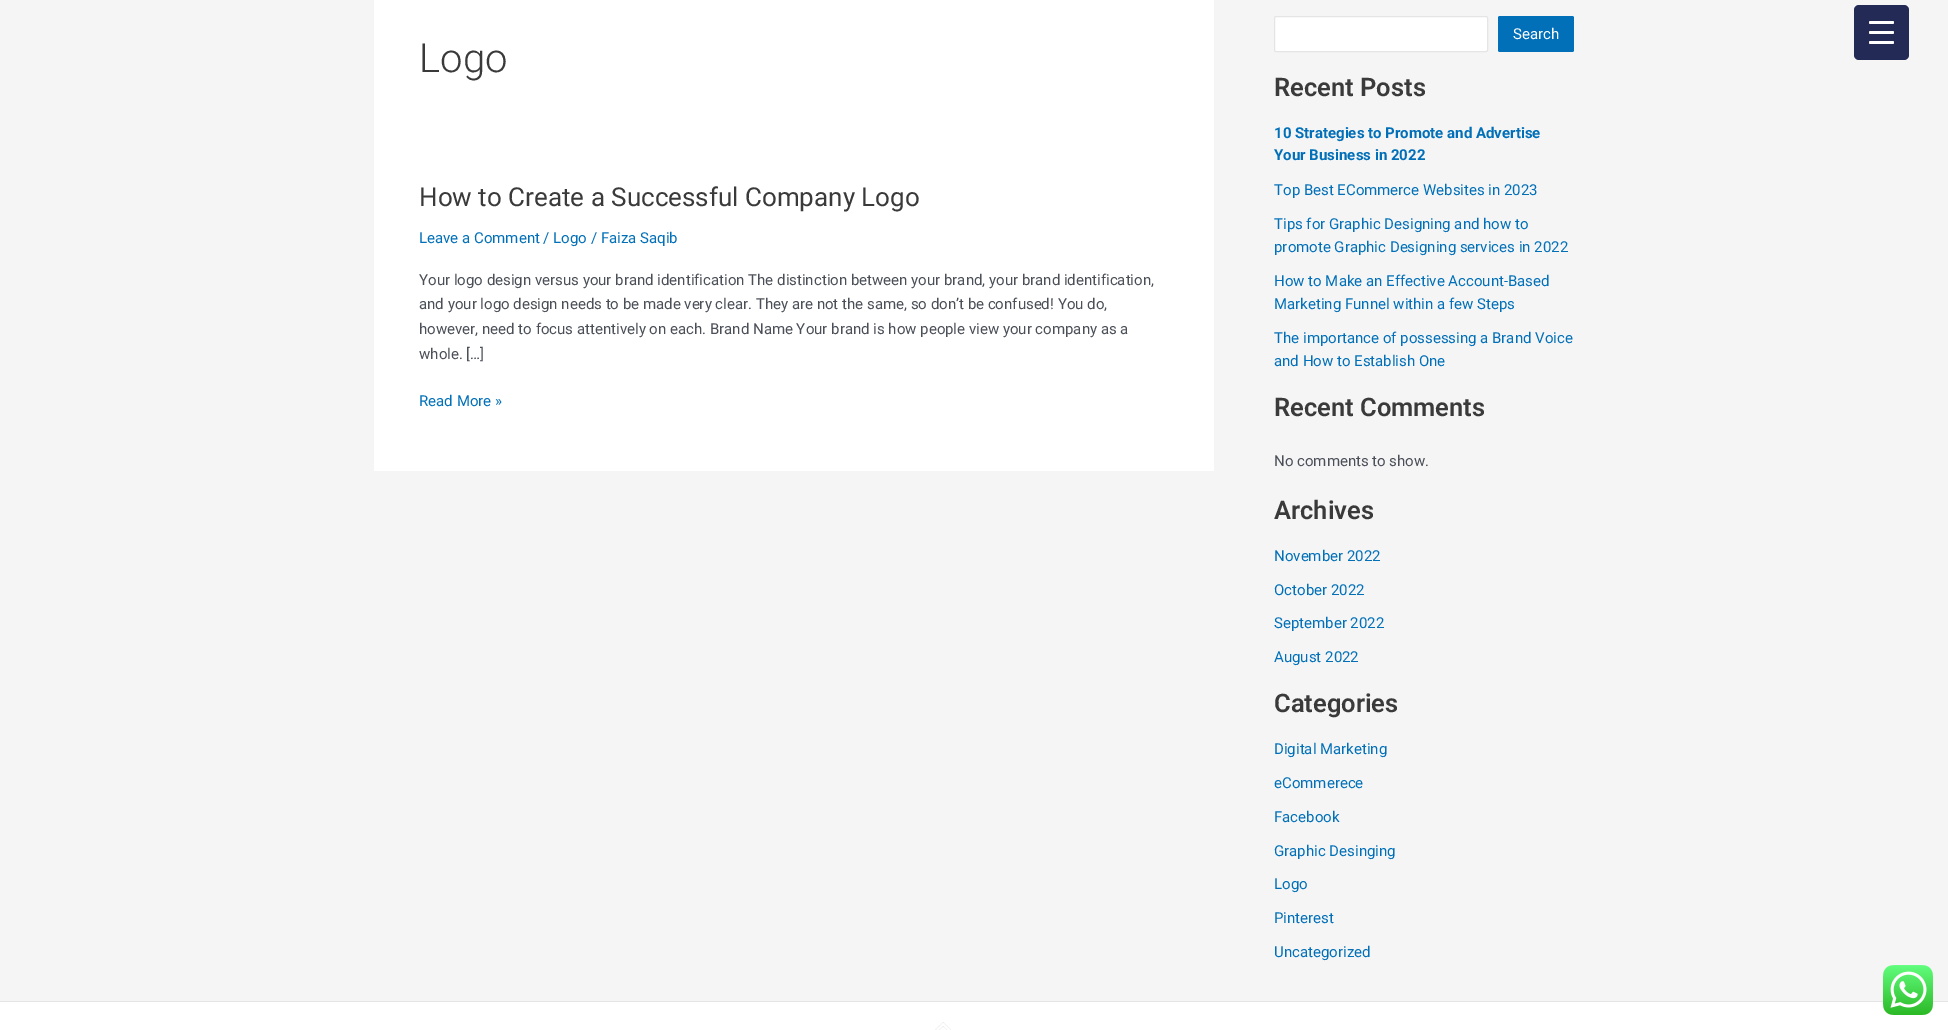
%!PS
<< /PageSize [1948 1030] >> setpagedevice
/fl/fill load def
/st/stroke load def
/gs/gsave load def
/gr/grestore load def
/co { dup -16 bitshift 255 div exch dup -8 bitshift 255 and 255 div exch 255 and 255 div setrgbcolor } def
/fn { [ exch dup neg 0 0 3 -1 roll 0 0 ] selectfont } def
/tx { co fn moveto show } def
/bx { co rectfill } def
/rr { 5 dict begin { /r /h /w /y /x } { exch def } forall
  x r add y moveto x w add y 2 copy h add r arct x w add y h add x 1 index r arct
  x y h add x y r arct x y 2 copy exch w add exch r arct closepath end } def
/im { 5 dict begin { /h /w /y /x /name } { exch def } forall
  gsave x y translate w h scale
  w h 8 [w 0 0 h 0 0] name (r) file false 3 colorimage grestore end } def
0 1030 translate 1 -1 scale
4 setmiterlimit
0 0 1948 1030 16#F5F5F5 bx
374 0 840 471 16#FFFFFF bx
1274.5 16.5 213 35 1.5 rr gs fl gr
16#E5E5E5 co
st
16#0170B9 co
1498 16 76 36 2 rr fl
0 1002 1948 28 16#FFFFFF bx
0 1001 1948 1 16#E5E5E5 bx
(media/1.raw) 935 1022 16 8 im
16#242A56 co
1854 5 55 55 5 rr fl
16#FFFFFF co
1869 31 25 3 1.5 rr fl
1869 21 25 3 1.5 rr fl
1869 41 25 3 1.5 rr fl
(media/2.raw) 1883 965 50 50 im
(Logo) 419 72 /Roboto-Light 40 16#3A3A3A tx
(How to Create a Successful Company Logo) 419 206 /Roboto-Regular 26 16#3A3A3A tx
(Leave a Comment / Logo / Faiza Saqib) 419 243 /Roboto-Regular 15 16#0170B9 tx
(Your logo design versus your brand identification The distinction between your brand, your brand identification,) 419 285 /Roboto-Regular 15 16#4B4F58 tx
(and your logo design needs to be made very clear. They are not the same, so don’t be confused! You do,) 419 309 /Roboto-Regular 15 16#4B4F58 tx
(however, need to focus attentively on each. Brand Name Your brand is how people view your company as a) 419 334 /Roboto-Regular 15 16#4B4F58 tx
(whole. […]) 419 359 /Roboto-Regular 15 16#4B4F58 tx
(Read More ») 419 406 /Roboto-Regular 15 16#0170B9 tx
(Search) 1513 39 /Roboto-Regular 15 16#FFFFFF tx
(Recent Posts) 1274 96 /Roboto-SemiBold 25.5 16#3A3A3A tx
(10 Strategies to Promote and Advertise) 1274 138 /Roboto-Bold 15 16#0170B9 tx
(Your Business in 2022) 1274 160 /Roboto-Bold 15 16#0170B9 tx
(Top Best ECommerce Websites in 2023) 1274 195 /Roboto-Regular 15 16#0170B9 tx
(Tips for Graphic Designing and how to) 1274 229 /Roboto-Regular 15 16#0170B9 tx
(promote Graphic Designing services in 2022) 1274 252 /Roboto-Regular 15 16#0170B9 tx
(How to Make an Effective Account-Based) 1274 286 /Roboto-Regular 15 16#0170B9 tx
(Marketing Funnel within a few Steps) 1274 309 /Roboto-Regular 15 16#0170B9 tx
(The importance of possessing a Brand Voice) 1274 343 /Roboto-Regular 15 16#0170B9 tx
(and How to Establish One) 1274 366 /Roboto-Regular 15 16#0170B9 tx
(Recent Comments) 1274 416 /Roboto-SemiBold 25.5 16#3A3A3A tx
(No comments to show.) 1274 466 /Roboto-Regular 15 16#4B4F58 tx
(Archives) 1274 519 /Roboto-SemiBold 25.5 16#3A3A3A tx
(November 2022) 1274 561 /Roboto-Regular 15 16#0170B9 tx
(October 2022) 1274 595 /Roboto-Regular 15 16#0170B9 tx
(September 2022) 1274 628 /Roboto-Regular 15 16#0170B9 tx
(August 2022) 1274 662 /Roboto-Regular 15 16#0170B9 tx
(Categories) 1274 712 /Roboto-SemiBold 25.5 16#3A3A3A tx
(Digital Marketing) 1274 754 /Roboto-Regular 15 16#0170B9 tx
(eCommerece) 1274 788 /Roboto-Regular 15 16#0170B9 tx
(Facebook) 1274 822 /Roboto-Regular 15 16#0170B9 tx
(Graphic Desinging) 1274 856 /Roboto-Regular 15 16#0170B9 tx
(Logo) 1274 889 /Roboto-Regular 15 16#0170B9 tx
(Pinterest) 1274 923 /Roboto-Regular 15 16#0170B9 tx
(Uncategorized) 1274 957 /Roboto-Regular 15 16#0170B9 tx
showpage
